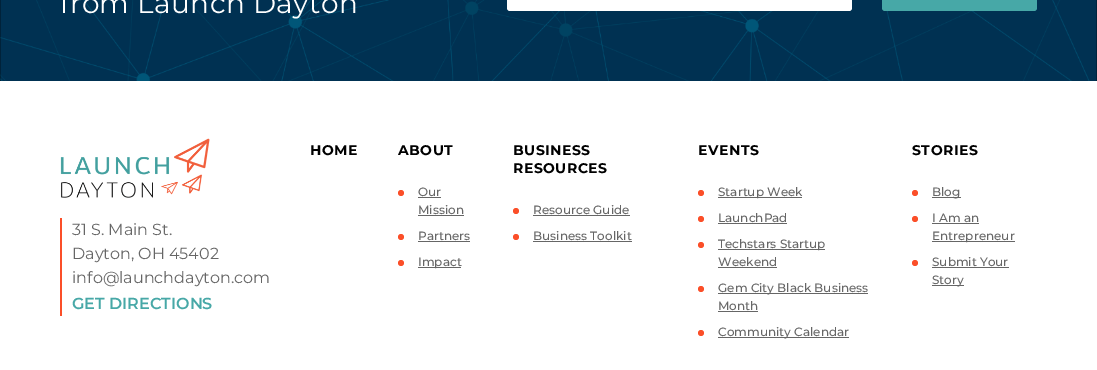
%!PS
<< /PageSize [1097 370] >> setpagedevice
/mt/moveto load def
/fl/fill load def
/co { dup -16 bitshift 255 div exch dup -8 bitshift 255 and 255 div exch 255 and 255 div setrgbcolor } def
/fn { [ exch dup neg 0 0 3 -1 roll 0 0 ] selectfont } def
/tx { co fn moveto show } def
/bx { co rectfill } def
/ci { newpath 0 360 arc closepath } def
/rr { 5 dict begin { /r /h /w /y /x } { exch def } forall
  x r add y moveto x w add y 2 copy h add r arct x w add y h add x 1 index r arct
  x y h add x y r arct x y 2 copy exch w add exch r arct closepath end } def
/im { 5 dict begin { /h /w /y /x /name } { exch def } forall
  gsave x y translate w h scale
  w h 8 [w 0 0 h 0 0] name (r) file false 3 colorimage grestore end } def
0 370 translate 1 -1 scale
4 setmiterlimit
0 0 1097 370 16#FFFFFF bx
(media/1.raw) 0 0 1097 81 im
507 -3 345 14 3 rr fl
16#47A8A7 co
882 -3 155 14 3 rr fl
(media/2.raw) 60 138 150 60 im
60 218 2 98 16#FB4F29 bx
401 193 3 ci fl
418 197 23 1 16#666666 bx
418 215 46 1 16#666666 bx
16#FB4F29 co
401 237 3 ci fl
418 241 52 1 16#666666 bx
16#FB4F29 co
401 263 3 ci fl
418 267 43 1 16#666666 bx
16#FB4F29 co
516 211 3 ci fl
533 215 97 1 16#666666 bx
16#FB4F29 co
516 237 3 ci fl
533 241 99 1 16#666666 bx
16#FB4F29 co
701 193 3 ci fl
718 197 84 1 16#666666 bx
16#FB4F29 co
701 219 3 ci fl
718 223 69 1 16#666666 bx
16#FB4F29 co
701 245 3 ci fl
718 249 107 1 16#666666 bx
718 267 59 1 16#666666 bx
16#FB4F29 co
701 289 3 ci fl
718 293 150 1 16#666666 bx
718 311 40 1 16#666666 bx
16#FB4F29 co
701 333 3 ci fl
718 337 131 1 16#666666 bx
16#FB4F29 co
915 193 3 ci fl
932 197 29 1 16#666666 bx
16#FB4F29 co
915 219 3 ci fl
932 223 47 1 16#666666 bx
932 241 83 1 16#666666 bx
16#FB4F29 co
915 263 3 ci fl
932 267 77 1 16#666666 bx
932 285 32 1 16#666666 bx
/Montserrat-Regular 28 fn
16#FFFFFF co
60 13 mt .4 0 (from Launch Dayton) ashow
(31 S. Main St.) 72 235 /Montserrat-Regular 16 16#666666 tx
(Dayton, OH 45402) 72 259 /Montserrat-Regular 16 16#666666 tx
(info@launchdayton.com) 72 283 /Montserrat-Regular 16 16#666666 tx
(GET DIRECTIONS) 72 309 /Montserrat-SemiBold 16 16#47A8A7 tx
/Montserrat-Bold 14 fn
16#000000 co
310 155 mt .5 0 (HOME) ashow
398 155 mt .5 0 (ABOUT) ashow
(Our) 418 196 /Montserrat-Medium 12 16#666666 tx
(Mission) 418 214 /Montserrat-Medium 12 16#666666 tx
(Partners) 418 240 /Montserrat-Medium 12 16#666666 tx
(Impact) 418 266 /Montserrat-Medium 12 16#666666 tx
/Montserrat-Bold 14 fn
16#000000 co
513 155 mt .5 0 (BUSINESS) ashow
513 173 mt .5 0 (RESOURCES) ashow
(Resource Guide) 533 214 /Montserrat-Medium 12 16#666666 tx
(Business Toolkit) 533 240 /Montserrat-Medium 12 16#666666 tx
/Montserrat-Bold 14 fn
16#000000 co
698 155 mt .5 0 (EVENTS) ashow
(Startup Week) 718 196 /Montserrat-Medium 12 16#666666 tx
(LaunchPad) 718 222 /Montserrat-Medium 12 16#666666 tx
(Techstars Startup) 718 248 /Montserrat-Medium 12 16#666666 tx
(Weekend) 718 266 /Montserrat-Medium 12 16#666666 tx
(Gem City Black Business) 718 292 /Montserrat-Medium 12 16#666666 tx
(Month) 718 310 /Montserrat-Medium 12 16#666666 tx
(Community Calendar) 718 336 /Montserrat-Medium 12 16#666666 tx
/Montserrat-Bold 14 fn
16#000000 co
912 155 mt .5 0 (STORIES) ashow
(Blog) 932 196 /Montserrat-Medium 12 16#666666 tx
(I Am an) 932 222 /Montserrat-Medium 12 16#666666 tx
(Entrepreneur) 932 240 /Montserrat-Medium 12 16#666666 tx
(Submit Your) 932 266 /Montserrat-Medium 12 16#666666 tx
(Story) 932 284 /Montserrat-Medium 12 16#666666 tx
showpage
